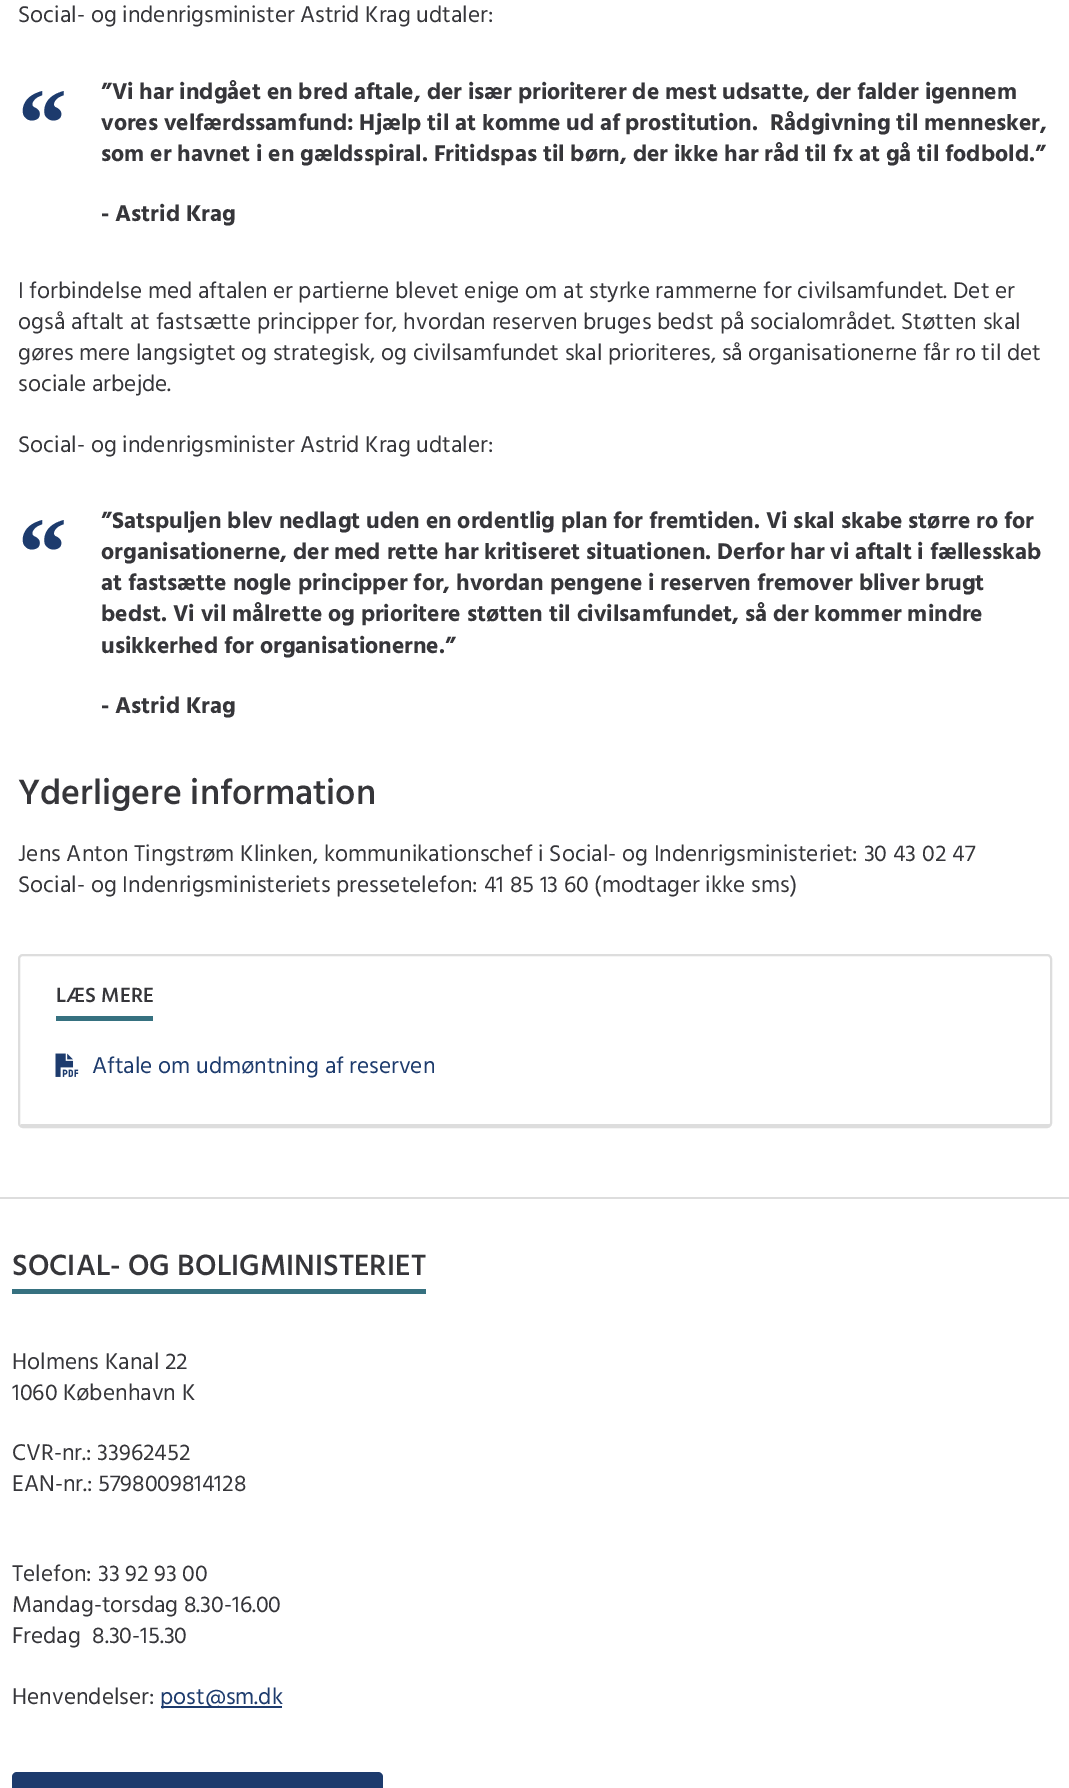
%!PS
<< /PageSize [1069 1788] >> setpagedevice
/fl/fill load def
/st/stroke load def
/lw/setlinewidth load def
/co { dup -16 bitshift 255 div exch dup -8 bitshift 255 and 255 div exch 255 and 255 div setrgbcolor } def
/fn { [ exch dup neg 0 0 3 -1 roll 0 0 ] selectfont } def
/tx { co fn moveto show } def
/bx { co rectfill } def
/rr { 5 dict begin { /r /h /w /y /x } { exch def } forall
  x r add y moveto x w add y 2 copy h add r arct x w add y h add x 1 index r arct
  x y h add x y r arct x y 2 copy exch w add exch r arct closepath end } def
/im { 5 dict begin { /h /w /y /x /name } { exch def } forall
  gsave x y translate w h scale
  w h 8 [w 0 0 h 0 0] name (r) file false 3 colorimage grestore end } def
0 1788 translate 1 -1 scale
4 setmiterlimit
0 0 1069 1788 16#FFFFFF bx
16#DDDDDD co
2 lw
19 955 1032 172 4 rr st
21 1124 1029 2 16#DDDDDD bx
56 1016 97 5 16#367180 bx
(media/1.raw) 55 1053 24 24 im
0 1197 1069 2 16#DDDDDD bx
12 1289 414 5 16#367180 bx
161 1706 121 2 16#1D3B6D bx
12 1772 371 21 5 rr fl
(Social- og indenrigsminister Astrid Krag udtaler:) 18 22 /Hind-Regular 23.35 16#36363A tx
(“) 18 156 /LiberationSerif-Bold 98 16#1D3B6D tx
(”Vi har indgået en bred aftale, der især prioriterer de mest udsatte, der falder igennem) 101 99 /Hind-Bold 23.35 16#36363A tx
(vores velfærdssamfund: Hjælp til at komme ud af) 101 130 /Hind-Bold 23.35 16#36363A tx
(prostitution.) 625 130 /Hind-Bold 23.35 16#36363A tx
(Rådgivning til mennesker,) 770 130 /Hind-Bold 23.35 16#36363A tx
(som er havnet i en gældsspiral. Fritidspas til børn, der ikke har råd til fx at gå til fodbold.”) 101 161 /Hind-Bold 23.35 16#36363A tx
(- Astrid Krag) 101 221 /Hind-Bold 23.35 16#36363A tx
(I forbindelse med aftalen er partierne blevet enige om at styrke rammerne for civilsamfundet. Det er) 18 298 /Hind-Regular 23.35 16#36363A tx
(også aftalt at fastsætte principper for, hvordan reserven bruges bedst på socialområdet. Støtten skal) 18 329 /Hind-Regular 23.35 16#36363A tx
(gøres mere langsigtet og strategisk, og civilsamfundet skal prioriteres, så organisationerne får ro til det) 18 360 /Hind-Regular 23.35 16#36363A tx
(sociale arbejde.) 18 391 /Hind-Regular 23.35 16#36363A tx
(Social- og indenrigsminister Astrid Krag udtaler:) 18 452 /Hind-Regular 23.35 16#36363A tx
(“) 18 585 /LiberationSerif-Bold 98 16#1D3B6D tx
(”Satspuljen blev nedlagt uden en ordentlig plan for fremtiden. Vi skal skabe større ro for) 101 528 /Hind-Bold 23.35 16#36363A tx
(organisationerne, der med rette har kritiseret situationen. Derfor har vi aftalt i fællesskab) 101 559 /Hind-Bold 23.35 16#36363A tx
(at fastsætte nogle principper for, hvordan pengene i reserven fremover bliver brugt) 101 590 /Hind-Bold 23.35 16#36363A tx
(bedst. Vi vil målrette og prioritere støtten til civilsamfundet, så der kommer mindre) 101 621 /Hind-Bold 23.35 16#36363A tx
(usikkerhed for organisationerne.”) 101 653 /Hind-Bold 23.35 16#36363A tx
(- Astrid Krag) 101 713 /Hind-Bold 23.35 16#36363A tx
(Yderligere information) 18 804 /Hind-Medium 36 16#36363A tx
(Jens Anton Tingstrøm Klinken, kommunikationschef i Social- og Indenrigsministeriet: 30 43 02 47) 18 861 /Hind-Regular 23.35 16#36363A tx
(Social- og Indenrigsministeriets pressetelefon: 41 85 13 60 \(modtager ikke sms\)) 18 892 /Hind-Regular 23.35 16#36363A tx
(LÆS MERE) 56 1002 /Hind-Medium 21 16#36363A tx
(Aftale om udmøntning af reserven) 92 1073 /Hind-Regular 23.35 16#1D3B6D tx
(SOCIAL- OG BOLIGMINISTERIET) 12 1275 /Hind-Medium 30 16#36363A tx
(Holmens Kanal 22) 12 1369 /Hind-Regular 23.35 16#36363A tx
(1060 København K) 12 1400 /Hind-Regular 23.35 16#36363A tx
(CVR-nr.: 33962452) 12 1460 /Hind-Regular 23.35 16#36363A tx
(EAN-nr.: 5798009814128) 12 1491 /Hind-Regular 23.35 16#36363A tx
(Telefon: 33 92 93 00) 12 1581 /Hind-Regular 23.35 16#36363A tx
(Mandag-torsdag 8.30-16.00) 12 1612 /Hind-Regular 23.35 16#36363A tx
(Fredag  8.30-15.30) 12 1643 /Hind-Regular 23.35 16#36363A tx
(Henvendelser:) 12 1704 /Hind-Regular 23.35 16#36363A tx
(post@sm.dk) 160 1704 /Hind-Regular 23.35 16#1D3B6D tx
showpage
